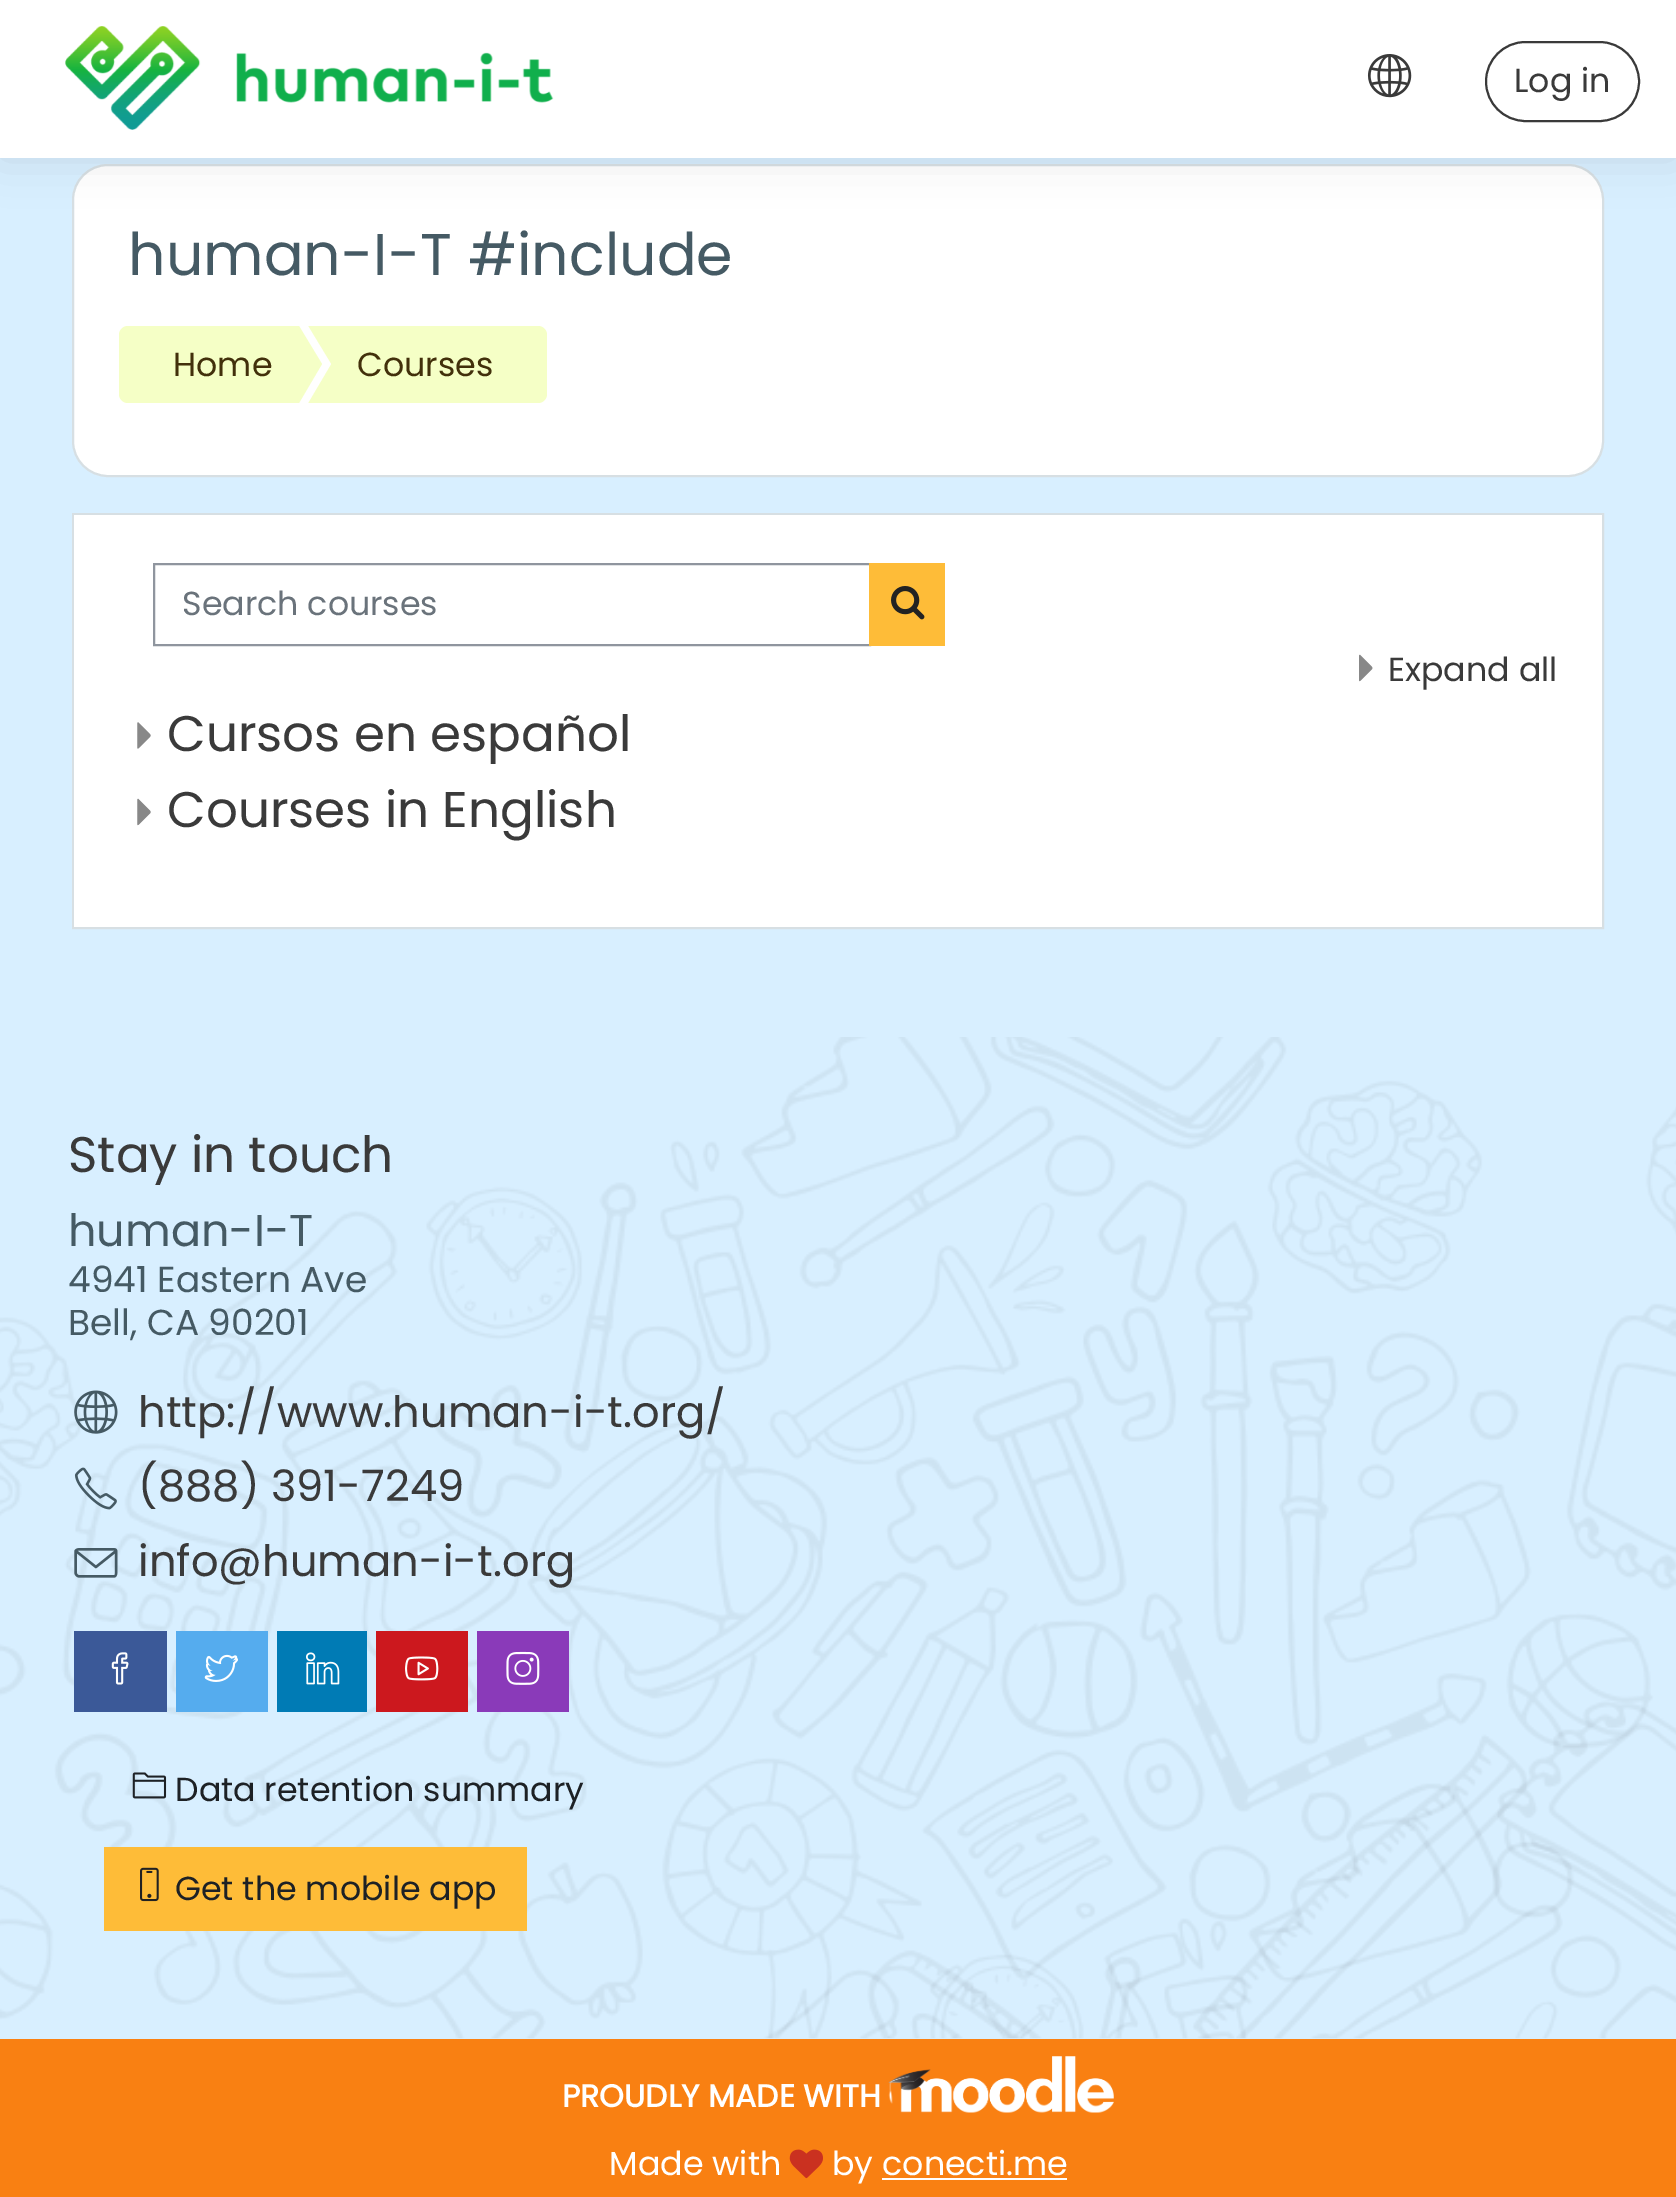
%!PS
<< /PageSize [1676 2197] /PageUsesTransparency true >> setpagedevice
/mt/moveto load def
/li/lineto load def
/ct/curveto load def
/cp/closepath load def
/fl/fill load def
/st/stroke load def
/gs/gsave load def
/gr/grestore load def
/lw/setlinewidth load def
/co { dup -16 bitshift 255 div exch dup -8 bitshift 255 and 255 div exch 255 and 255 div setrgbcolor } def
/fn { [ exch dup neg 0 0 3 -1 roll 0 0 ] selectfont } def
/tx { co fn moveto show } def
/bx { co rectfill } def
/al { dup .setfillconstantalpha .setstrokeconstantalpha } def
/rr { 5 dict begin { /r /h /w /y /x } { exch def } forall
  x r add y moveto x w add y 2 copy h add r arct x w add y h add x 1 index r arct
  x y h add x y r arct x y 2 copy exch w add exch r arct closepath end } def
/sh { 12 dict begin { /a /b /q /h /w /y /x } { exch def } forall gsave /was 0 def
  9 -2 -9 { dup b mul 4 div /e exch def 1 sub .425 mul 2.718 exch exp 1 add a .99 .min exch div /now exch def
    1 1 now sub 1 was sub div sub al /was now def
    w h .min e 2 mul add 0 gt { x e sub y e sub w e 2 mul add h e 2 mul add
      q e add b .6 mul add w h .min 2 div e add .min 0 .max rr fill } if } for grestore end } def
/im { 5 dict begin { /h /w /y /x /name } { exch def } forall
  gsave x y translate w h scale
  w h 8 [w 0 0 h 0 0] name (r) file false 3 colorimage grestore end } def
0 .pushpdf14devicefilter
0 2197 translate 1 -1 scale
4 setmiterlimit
0 0 1676 2197 16#D8EFFF bx
16#FFFFFF co
73 165 1530 311 35 rr gs fl gr
16#D7DFE3 co
2 lw
st
16#000000 co
0 0 1676 158 0 22.5 .1 sh
0 0 1676 158 16#FFFFFF bx
(media/1.raw) 65 26 489 104 im
(media/2.raw) 1367 54 45 44 im
16#3A3A3A co
1486 42 153 79 39.5 rr st
16#F5FFC6 co
128 326 mt 299 326 li 299 403 li 128 403 li 123 403 119 399 119 394 ct 119 335 li 119 330 123 326 128 326 ct cp fl
308 326 mt 538 326 li 543 326 547 330 547 335 ct 547 394 li 547 399 543 403 538 403 ct 308 403 li cp fl
16#FFFFFF co
308 403 mt 308 326 li 331 364 li cp fl
16#F5FFC6 co
299 403 mt 299 326 li 322 364 li cp fl
16#D7DFE3 co
73 514 1530 414 rectstroke
74 515 1528 412 16#FFFFFF bx
16#8F959E co
154 564 716 81 rectstroke
869 563 76 83 16#FEBC38 bx
(media/3.raw) 891 586 34 34 im
(media/4.raw) 1359 654 14 28 im
(media/5.raw) 137 722 14 27 im
(media/6.raw) 137 798 14 28 im
(media/7.raw) 0 1037 1676 1002 im
(media/8.raw) 74 1390 44 44 im
(media/9.raw) 74 1467 43 43 im
(media/10.raw) 74 1548 44 30 im
74 1631 93 81 16#3B5998 bx
(media/11.raw) 111 1652 18 33 im
176 1631 92 81 16#55ACEE bx
(media/12.raw) 204 1654 34 28 im
277 1631 90 81 16#007BB5 bx
(media/13.raw) 306 1652 34 33 im
376 1631 92 81 16#CC181E bx
(media/14.raw) 405 1656 34 25 im
477 1631 92 81 16#8A3AB9 bx
(media/15.raw) 506 1651 34 34 im
(media/16.raw) 132 1772 35 27 im
104 1847 423 84 16#FEBC38 bx
(media/17.raw) 140 1867 19 35 im
0 2039 1676 158 16#F98012 bx
(media/18.raw) 888 2056 226 57 im
(media/19.raw) 789 2149 34 30 im
882 2178 185 2 16#FFFFFF bx
(Log in) 1514 92 /Poppins-Regular 33.25 16#3A3A3A tx
(human-I-T #include) 128 275 /Poppins-Regular 58.75 16#455A64 tx
(Home) 173 376 /Poppins-Regular 33.25 16#42300B tx
(Courses) 357 376 /Poppins-Regular 33.25 16#42300B tx
(Search courses) 182 615 /Poppins-Regular 33.25 16#6A737B tx
(Expand all) 1388 681 /Poppins-Regular 33.25 16#3A3A3A tx
(Cursos en español) 167 751 /Poppins-Regular 50 16#3A3A3A tx
(Courses in English) 167 827 /Poppins-Regular 50 16#3A3A3A tx
(Stay in touch) 68 1172 /Poppins-Regular 50 16#3A3A3A tx
(human-I-T) 68 1246 /Poppins-Regular 44.5 16#455A64 tx
(4941 Eastern Ave) 68 1292 /Poppins-Regular 36 16#455A64 tx
(Bell, CA 90201) 68 1335 /Poppins-Regular 36 16#455A64 tx
(http://www.human-i-t.org/) 138 1427 /Poppins-Regular 43.25 16#3A3A3A tx
(\(888\) 391-7249) 138 1501 /Poppins-Regular 43.25 16#3A3A3A tx
(info@human-i-t.org) 138 1576 /Poppins-Regular 43.25 16#3A3A3A tx
(Data retention summary) 175 1801 /Poppins-Regular 33.25 16#1D2125 tx
(Get the mobile app) 175 1900 /Poppins-Regular 33.25 16#1D2125 tx
(PROUDLY MADE WITH) 562 2107 /Poppins-Bold 31.5 16#FFFFFF tx
(Made with) 609 2175 /Poppins-Regular 33.25 16#FFFFFF tx
(by conecti.me) 832 2175 /Poppins-Regular 33.25 16#FFFFFF tx
.poppdf14devicefilter showpage
